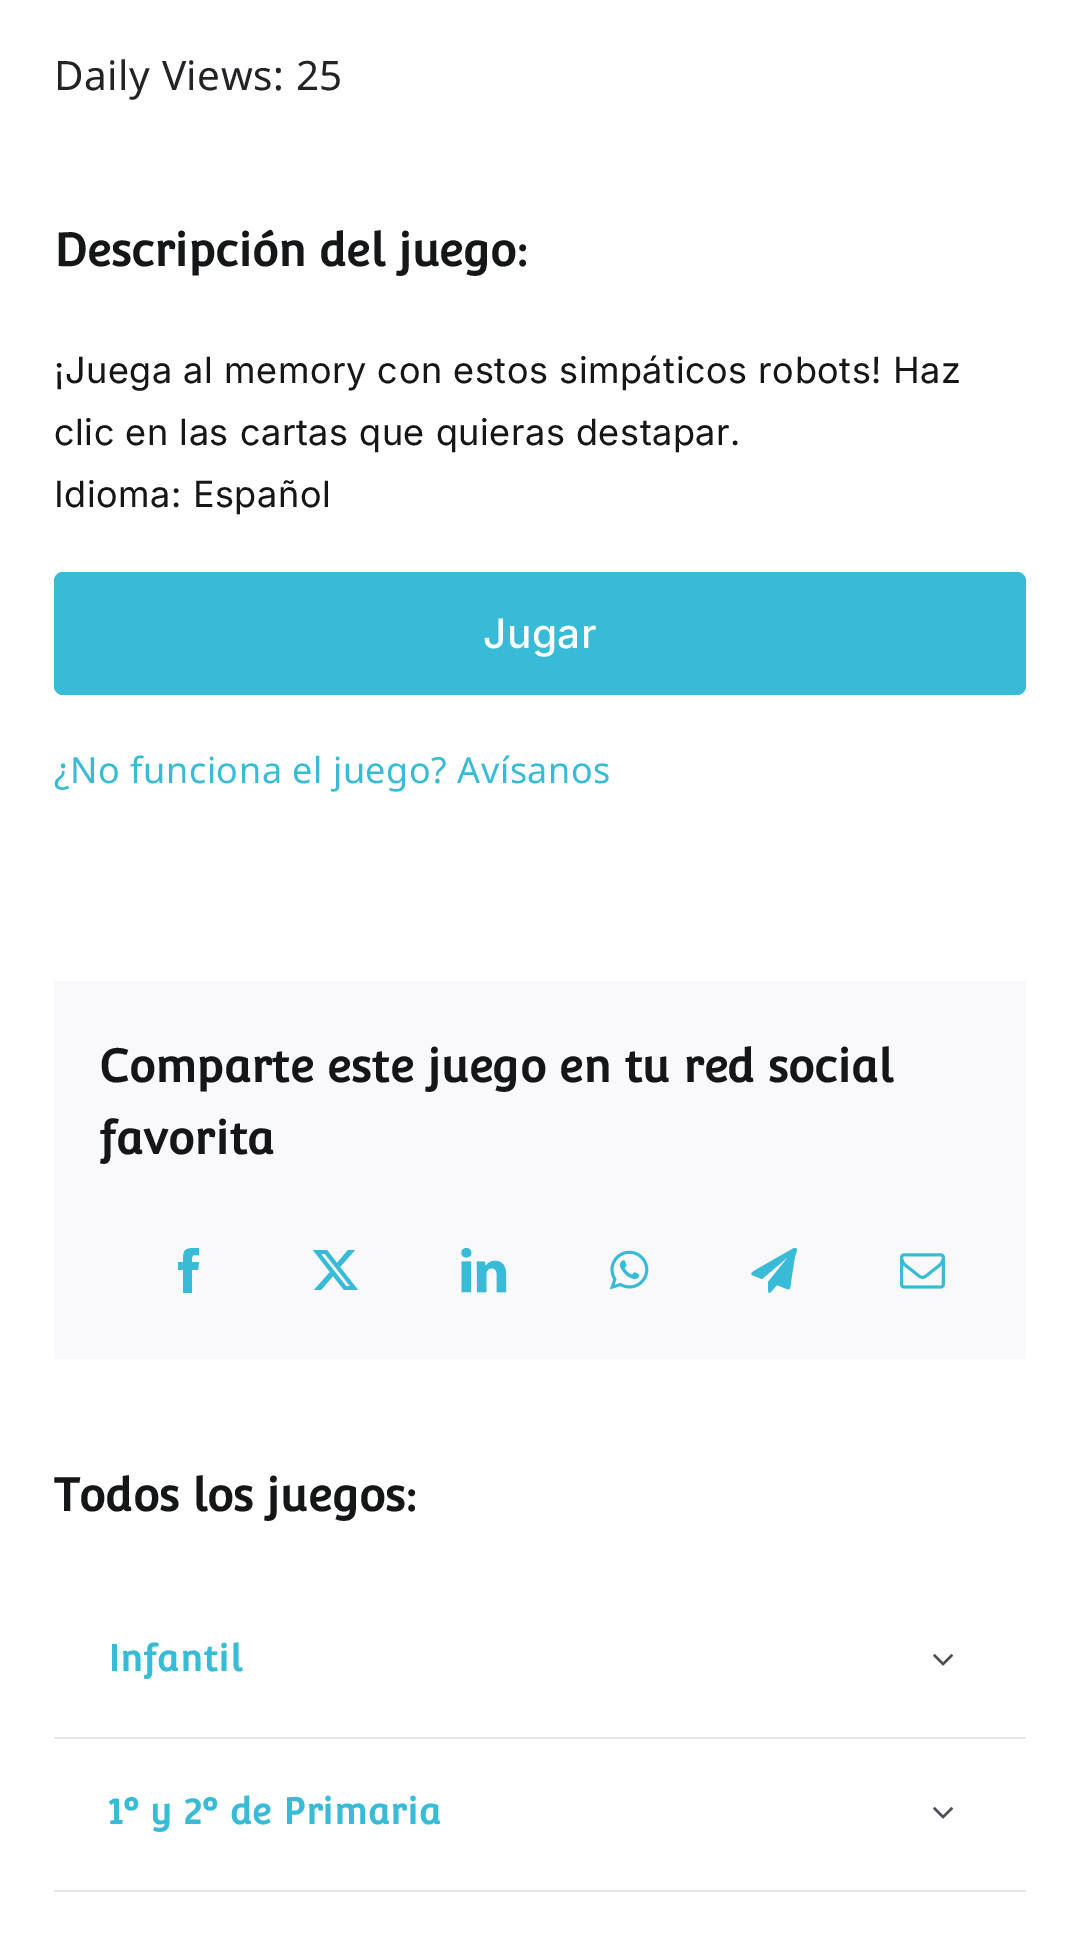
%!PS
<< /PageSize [1078 1944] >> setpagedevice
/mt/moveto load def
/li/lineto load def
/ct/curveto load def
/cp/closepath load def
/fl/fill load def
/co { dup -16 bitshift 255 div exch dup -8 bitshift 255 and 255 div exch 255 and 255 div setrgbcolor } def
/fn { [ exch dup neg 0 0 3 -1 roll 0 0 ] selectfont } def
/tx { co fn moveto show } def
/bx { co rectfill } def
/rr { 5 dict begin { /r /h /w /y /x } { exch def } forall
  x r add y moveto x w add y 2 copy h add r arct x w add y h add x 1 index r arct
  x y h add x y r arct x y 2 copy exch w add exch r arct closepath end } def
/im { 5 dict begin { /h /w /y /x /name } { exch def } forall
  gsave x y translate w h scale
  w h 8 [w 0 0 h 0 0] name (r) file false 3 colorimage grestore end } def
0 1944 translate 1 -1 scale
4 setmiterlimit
0 0 1078 1944 16#FFFFFF bx
16#37BBD7 co
54 572 972 123 9 rr fl
54 981 972 378 16#F9F9FB bx
16#37BBD7 co
192 1293 mt 183 1293 li 183 1270 li 178 1270 li 178 1262 li 183 1262 li 183 1248 185 1248 199 1248 ct 199 1255 li 191 1255 192 1255 192 1262 ct 199 1262 li 198 1270 li 192 1270 li cp fl
348 1250 mt 355 1250 li 340 1267 li 358 1290 li 344 1290 li 333 1276 li 321 1290 li 314 1290 li 330 1272 li 313 1250 li 327 1250 li 337 1263 li cp 346 1286 mt 350 1286 li 325 1254 li 321 1254 li cp fl
(media/1.raw) 461 1247 46 46 im
(media/2.raw) 609 1250 40 40 im
796 1248 mt 798 1250 796 1253 795 1256 ct 792 1275 li 789 1293 793 1291 777 1285 ct 768 1295 768 1297 768 1282 ct 789 1256 li 762 1279 li 750 1274 747 1275 759 1268 ct 794 1248 li cp fl
(media/3.raw) 900 1253 45 36 im
54 1737 972 2 16#E6E6E6 bx
(media/4.raw) 933 1654 20 12 im
54 1890 972 2 16#E6E6E6 bx
(media/4.raw) 933 1807 20 12 im
/NotoSans-Regular 40.5 fn
16#212326 co
54 90 mt .55 0 (Daily Views: 25) ashow
(Descripción del juego:) 54 266 /Convergence-Bold 45 16#141617 tx
/Inter-Regular 36 fn
54 383 mt .55 0 (¡Juega al memory con estos simpáticos robots! Haz) ashow
54 445 mt .55 0 (clic en las cartas que quieras destapar.) ashow
54 507 mt .55 0 (Idioma: Español) ashow
/Inter-Medium 40.5 fn
16#FFFFFF co
483 648 mt .5 0 (Jugar) ashow
/NotoSans-Regular 36 fn
16#37BBD7 co
54 783 mt .55 0 (¿No funciona el juego? Avísanos) ashow
(Comparte este juego en tu red social) 99 1082 /Convergence-Bold 45 16#141617 tx
(favorita) 99 1154 /Convergence-Bold 45 16#141617 tx
(Todos los juegos:) 54 1511 /Convergence-Bold 45 16#141617 tx
/Convergence-Bold 36 fn
16#37BBD7 co
108 1671 mt .55 0 (Infantil) ashow
108 1824 mt .55 0 (1º y 2º de Primaria) ashow
showpage
